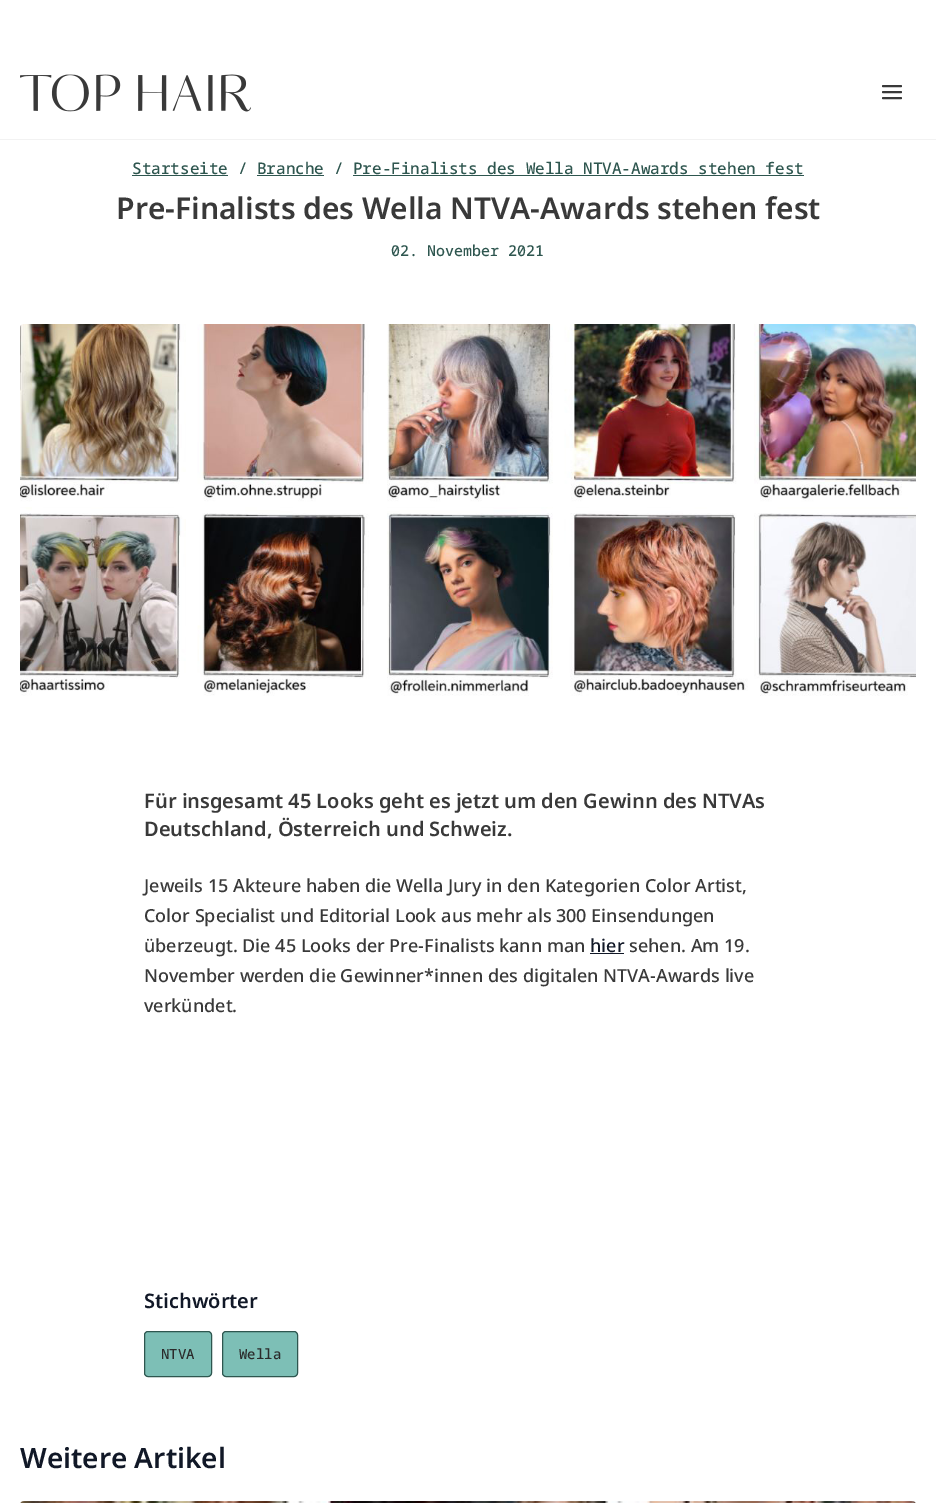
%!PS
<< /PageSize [936 1503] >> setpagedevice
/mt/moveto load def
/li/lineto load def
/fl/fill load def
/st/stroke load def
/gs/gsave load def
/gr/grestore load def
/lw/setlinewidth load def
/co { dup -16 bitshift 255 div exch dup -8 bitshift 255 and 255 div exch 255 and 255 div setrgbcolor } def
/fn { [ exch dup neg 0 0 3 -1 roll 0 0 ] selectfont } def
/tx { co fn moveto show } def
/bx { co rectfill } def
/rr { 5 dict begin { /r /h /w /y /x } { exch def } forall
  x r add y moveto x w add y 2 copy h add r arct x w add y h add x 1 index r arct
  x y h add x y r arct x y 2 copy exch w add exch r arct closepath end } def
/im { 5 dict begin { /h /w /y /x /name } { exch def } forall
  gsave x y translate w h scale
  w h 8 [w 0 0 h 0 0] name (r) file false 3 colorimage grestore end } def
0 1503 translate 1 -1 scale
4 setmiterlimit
0 0 936 1503 16#FFFFFF bx
(media/1.raw) 20 74 231 38 im
16#393939 co
2 lw
1 setlinecap
1 setlinejoin
883 92 mt 901 92 li 883 86 mt 901 86 li 883 98 mt 901 98 li st
0 139 936 1 16#F2F2F2 bx
132 175 96 1 16#2E564F bx
257 175 67 1 16#2E564F bx
353 175 451 1 16#2E564F bx
(media/2.raw) 20 324 896 372 im
590 953 34 1 16#111827 bx
16#7DBFB6 co
144.5 1331.5 67 45 3.5 rr gs fl gr
16#2E564F co
1 lw
0 setlinecap
0 setlinejoin
st
16#7DBFB6 co
222.5 1331.5 75 45 3.5 rr gs fl gr
16#2E564F co
st
(media/3.raw) 20 1501 896 2 im
(Startseite / Branche / Pre-Finalists des Wella NTVA-Awards stehen fest) 132 174 /NotoSansMono-Medium 16 16#2E564F tx
(Pre-Finalists des Wella NTVA-Awards stehen fest) 116 219 /NotoSans-SemiBold 30 16#393939 tx
(02. November 2021) 391 256 /NotoSansMono-Medium 15 16#2E564F tx
(Für insgesamt 45 Looks geht es jetzt um den Gewinn des NTVAs) 144 808 /NotoSans-SemiBold 20 16#393939 tx
(Deutschland, Österreich und Schweiz.) 144 836 /NotoSans-SemiBold 20 16#393939 tx
(Jeweils 15 Akteure haben die Wella Jury in den Kategorien Color Artist,) 144 892 /NotoSans-Medium 18 16#393939 tx
(Color Specialist und Editorial Look aus mehr als 300 Einsendungen) 144 922 /NotoSans-Medium 18 16#393939 tx
(überzeugt. Die 45 Looks der Pre-Finalists kann man) 144 952 /NotoSans-Medium 18 16#393939 tx
(hier) 590 952 /NotoSans-Medium 18 16#111827 tx
(sehen. Am 19.) 629 952 /NotoSans-Medium 18 16#393939 tx
(November werden die Gewinner*innen des digitalen NTVA-Awards live) 144 982 /NotoSans-Medium 18 16#393939 tx
(verkündet.) 144 1012 /NotoSans-Medium 18 16#393939 tx
(Stichwörter) 144 1308 /NotoSans-SemiBold 20 16#111827 tx
(NTVA) 161 1359 /NotoSansMono-Medium 14 16#2B2B2B tx
(Wella) 239 1359 /NotoSansMono-Medium 14 16#2B2B2B tx
(Weitere Artikel) 20 1468 /NotoSans-SemiBold 28 16#111827 tx
showpage
